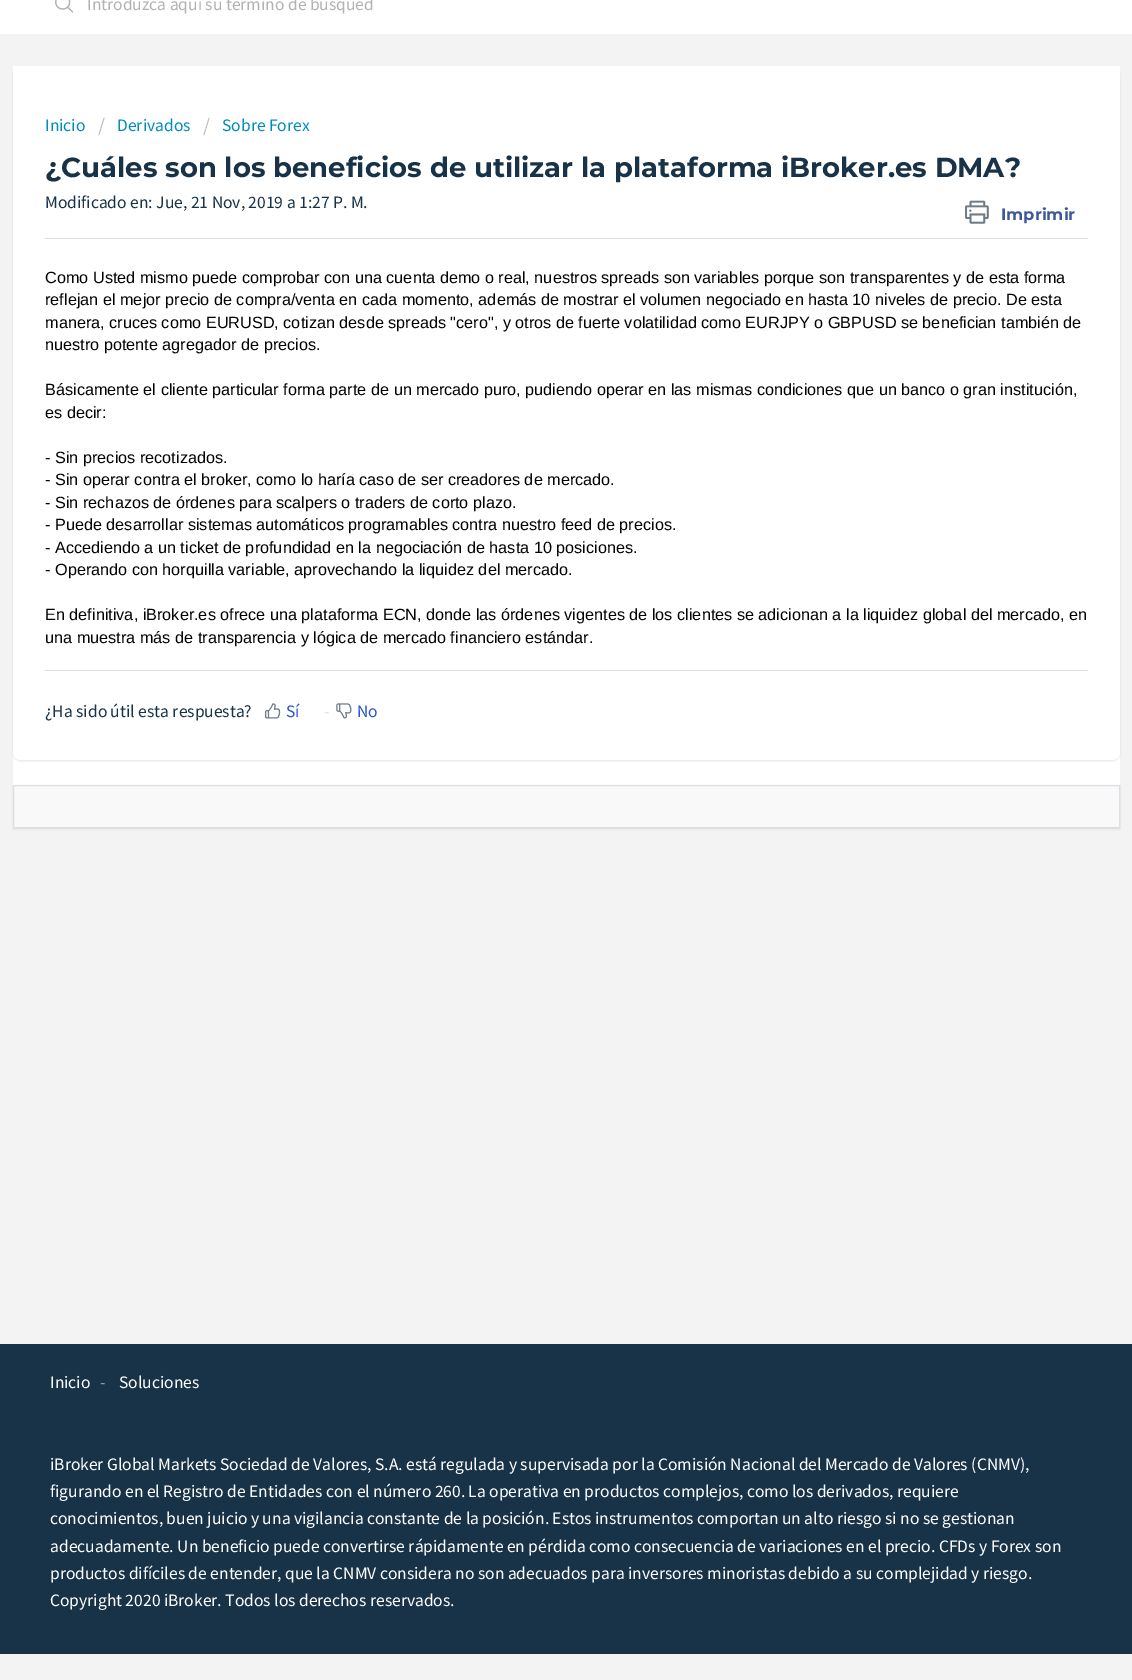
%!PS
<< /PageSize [1132 1680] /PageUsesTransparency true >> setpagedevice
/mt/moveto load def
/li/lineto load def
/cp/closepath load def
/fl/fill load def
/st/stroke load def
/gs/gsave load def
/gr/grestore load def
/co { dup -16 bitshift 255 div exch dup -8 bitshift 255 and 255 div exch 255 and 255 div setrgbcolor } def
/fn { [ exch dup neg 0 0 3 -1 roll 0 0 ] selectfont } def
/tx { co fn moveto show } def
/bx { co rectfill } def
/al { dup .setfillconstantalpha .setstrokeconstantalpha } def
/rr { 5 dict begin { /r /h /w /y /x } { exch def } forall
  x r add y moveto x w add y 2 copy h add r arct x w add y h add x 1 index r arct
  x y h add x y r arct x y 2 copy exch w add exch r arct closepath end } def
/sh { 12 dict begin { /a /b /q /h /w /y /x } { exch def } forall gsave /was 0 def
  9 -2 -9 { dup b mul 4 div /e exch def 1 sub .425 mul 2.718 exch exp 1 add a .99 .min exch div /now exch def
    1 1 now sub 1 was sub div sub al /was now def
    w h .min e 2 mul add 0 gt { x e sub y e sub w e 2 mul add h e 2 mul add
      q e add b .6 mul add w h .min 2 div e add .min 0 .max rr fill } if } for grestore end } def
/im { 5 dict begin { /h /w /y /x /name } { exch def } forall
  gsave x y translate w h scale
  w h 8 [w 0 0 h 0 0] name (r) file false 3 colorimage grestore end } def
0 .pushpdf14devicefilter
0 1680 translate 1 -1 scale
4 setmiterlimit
0 0 1132 1680 16#F3F3F3 bx
0 0 1132 34 16#FFFFFF bx
(media/1.raw) 55 0 19 13 im
13 66 1107 719 16#FFFFFF bx
16#3F3F44 co
13 68 1107 693 8 1 .15 sh
16#FFFFFF co
13 66 1107 694 8 rr fl
(media/2.raw) 965 200 24 24 im
45 238 1043 1 16#DCDCDC bx
45 670 1043 1 16#DCDCDC bx
(media/3.raw) 265 703 16 16 im
(media/4.raw) 336 703 16 16 im
16#3F3F44 co
13 786 1107 43 0 1 .15 sh
16#F9F9F9 co
13.5 785.5 mt 1119.5 785.5 li 1119.5 827.5 li 13.5 827.5 li cp gs fl gr
16#DADFE3 co
st
0 1344 1132 310 16#183247 bx
(Introduzca aquí su término de búsqued) 87 10 /SourceSansPro-Regular 17.5 16#B2B2B2 tx
(Inicio) 45 131 /SourceSansPro-Regular 17.5 16#008BC1 tx
(/) 98 132 /SourceSansPro-Regular 20 16#BBBBBB tx
(Derivados) 117 131 /SourceSansPro-Regular 17.5 16#008BC1 tx
(/) 203 132 /SourceSansPro-Regular 20 16#BBBBBB tx
(Sobre Forex) 222 131 /SourceSansPro-Regular 17.5 16#008BC1 tx
(¿Cuáles son los beneficios de utilizar la plataforma iBroker.es DMA?) 45 177 /Montserrat-Bold 27.5 16#183247 tx
(Imprimir) 1001 220 /Montserrat-Bold 16.25 16#3B5998 tx
(Modificado en: Jue, 21 Nov, 2019 a 1:27 P. M.) 45 208 /SourceSansPro-Regular 17.5 16#183247 tx
(Como Usted mismo puede comprobar con una cuenta demo o real, nuestros spreads son variables porque son transparentes y de esta forma) 45 283 /LiberationSans-Regular 16.25 16#000000 tx
(reflejan el mejor precio de compra/venta en cada momento, además de mostrar el volumen negociado en hasta 10 niveles de precio. De esta) 45 305 /LiberationSans-Regular 16.25 16#000000 tx
(manera, cruces como EURUSD, cotizan desde spreads "cero", y otros de fuerte volatilidad como EURJPY o GBPUSD se benefician también de) 45 328 /LiberationSans-Regular 16.25 16#000000 tx
(nuestro potente agregador de precios.) 45 350 /LiberationSans-Regular 16.25 16#000000 tx
(Básicamente el cliente particular forma parte de un mercado puro, pudiendo operar en las mismas condiciones que un banco o gran institución,) 45 395 /LiberationSans-Regular 16.25 16#000000 tx
(es decir:) 45 418 /LiberationSans-Regular 16.25 16#000000 tx
(- Sin precios recotizados.) 45 463 /LiberationSans-Regular 16.25 16#000000 tx
(- Sin operar contra el broker, como lo haría caso de ser creadores de mercado.) 45 485 /LiberationSans-Regular 16.25 16#000000 tx
(- Sin rechazos de órdenes para scalpers o traders de corto plazo.) 45 508 /LiberationSans-Regular 16.25 16#000000 tx
(- Puede desarrollar sistemas automáticos programables contra nuestro feed de precios.) 45 530 /LiberationSans-Regular 16.25 16#000000 tx
(- Accediendo a un ticket de profundidad en la negociación de hasta 10 posiciones.) 45 553 /LiberationSans-Regular 16.25 16#000000 tx
(- Operando con horquilla variable, aprovechando la liquidez del mercado.) 45 575 /LiberationSans-Regular 16.25 16#000000 tx
(En definitiva, iBroker.es ofrece una plataforma ECN, donde las órdenes vigentes de los clientes se adicionan a la liquidez global del mercado, en) 45 620 /LiberationSans-Regular 16.25 16#000000 tx
(una muestra más de transparencia y lógica de mercado financiero estándar.) 45 643 /LiberationSans-Regular 16.25 16#000000 tx
(¿Ha sido útil esta respuesta?) 45 717 /SourceSansPro-Regular 17.5 16#183247 tx
(Sí) 286 717 /SourceSansPro-Regular 17.5 16#2753D7 tx
(-) 324 717 /SourceSansPro-Regular 17.5 16#E5E5E5 tx
(No) 357 717 /SourceSansPro-Regular 17.5 16#2753D7 tx
(Inicio) 50 1388 /SourceSansPro-Regular 17.5 16#FFFFFF tx
(-) 100 1388 /SourceSansPro-Regular 17.5 16#8C99A3 tx
(Soluciones) 119 1388 /SourceSansPro-Regular 17.5 16#FFFFFF tx
(iBroker Global Markets Sociedad de Valores, S.A. está regulada y supervisada por la Comisión Nacional del Mercado de Valores \(CNMV\),) 50 1470 /SourceSansPro-Regular 17.5 16#FFFFFF tx
(figurando en el Registro de Entidades con el número 260. La operativa en productos complejos, como los derivados, requiere) 50 1497 /SourceSansPro-Regular 17.5 16#FFFFFF tx
(conocimientos, buen juicio y una vigilancia constante de la posición. Estos instrumentos comportan un alto riesgo si no se gestionan) 50 1524 /SourceSansPro-Regular 17.5 16#FFFFFF tx
(adecuadamente. Un beneficio puede convertirse rápidamente en pérdida como consecuencia de variaciones en el precio. CFDs y Forex son) 50 1552 /SourceSansPro-Regular 17.5 16#FFFFFF tx
(productos difíciles de entender, que la CNMV considera no son adecuados para inversores minoristas debido a su complejidad y riesgo.) 50 1579 /SourceSansPro-Regular 17.5 16#FFFFFF tx
(Copyright 2020 iBroker. Todos los derechos reservados.) 50 1606 /SourceSansPro-Regular 17.5 16#FFFFFF tx
.poppdf14devicefilter showpage
